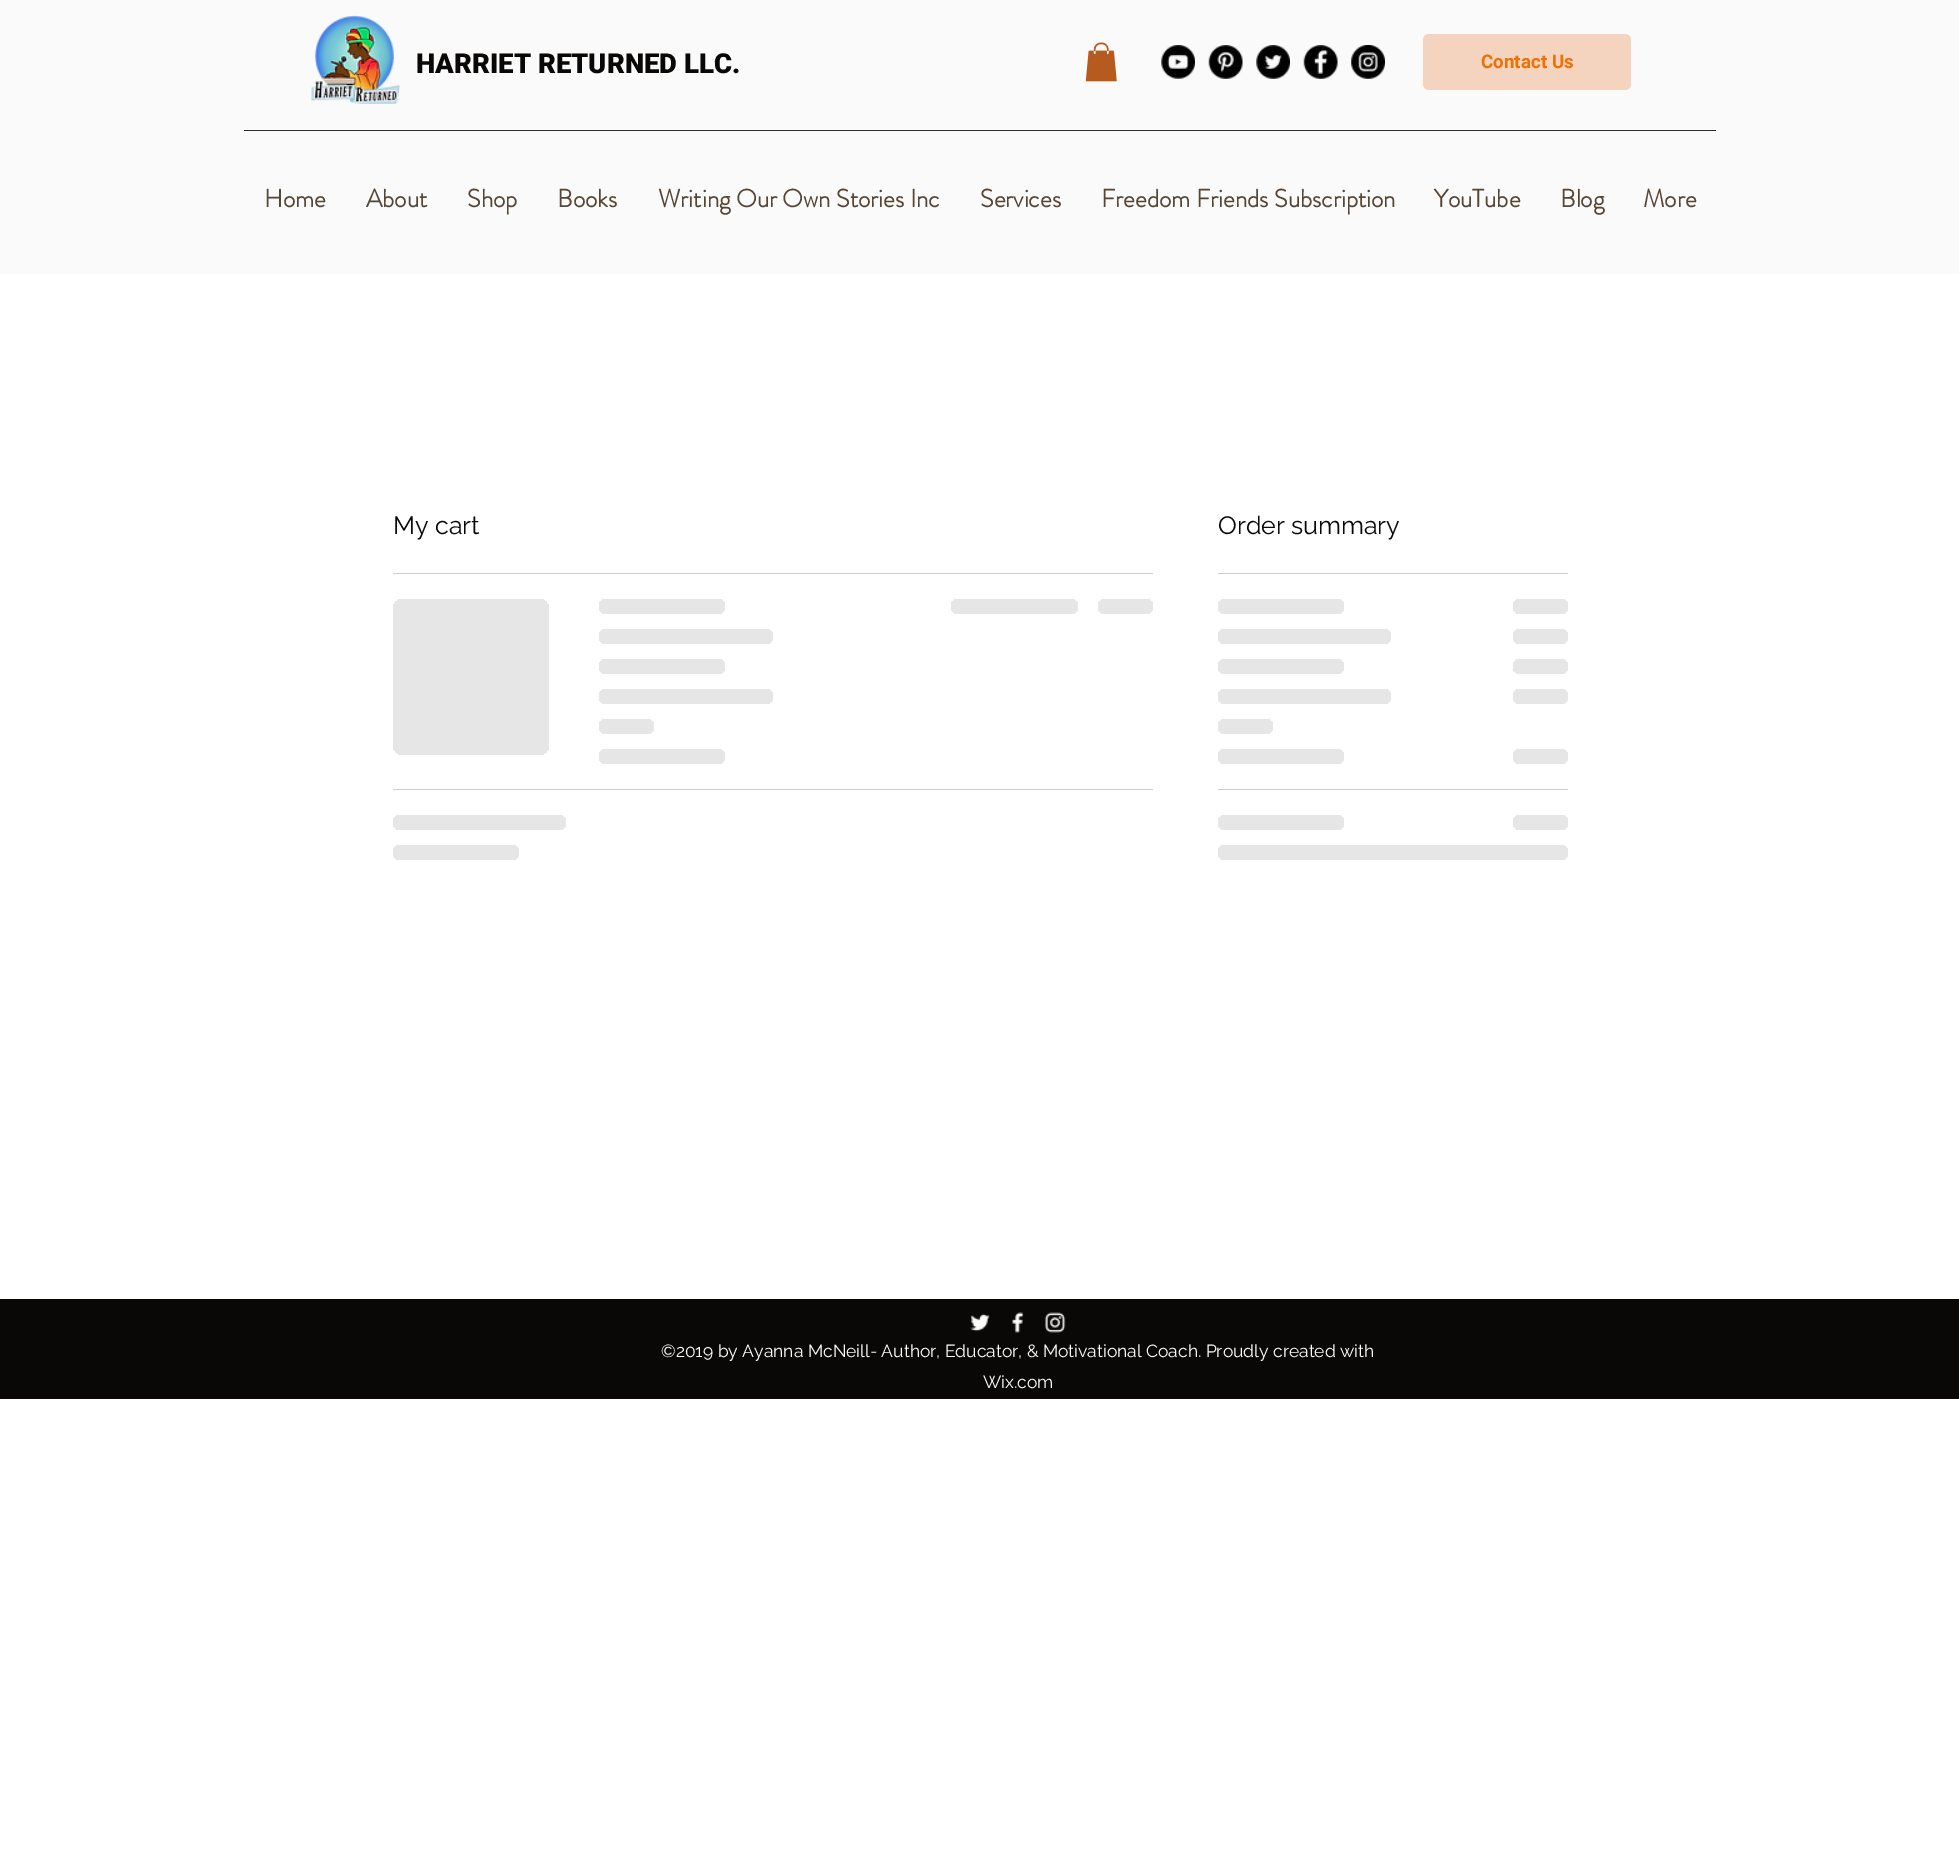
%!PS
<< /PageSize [1959 1874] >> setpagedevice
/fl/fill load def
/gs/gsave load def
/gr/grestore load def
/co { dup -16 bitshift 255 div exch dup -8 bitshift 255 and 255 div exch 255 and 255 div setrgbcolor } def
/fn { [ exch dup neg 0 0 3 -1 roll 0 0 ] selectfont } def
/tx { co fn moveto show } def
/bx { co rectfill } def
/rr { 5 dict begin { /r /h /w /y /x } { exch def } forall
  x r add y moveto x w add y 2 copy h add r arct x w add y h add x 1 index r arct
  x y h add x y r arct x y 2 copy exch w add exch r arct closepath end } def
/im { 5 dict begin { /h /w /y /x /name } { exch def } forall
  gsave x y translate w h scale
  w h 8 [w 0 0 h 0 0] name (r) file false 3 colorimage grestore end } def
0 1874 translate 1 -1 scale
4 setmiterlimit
0 0 1959 1874 16#FFFFFF bx
0 0 1959 274 16#FAFAFA bx
(media/1.raw) 311 15 90 89 im
(media/2.raw) 1085 42 32 40 im
(media/3.raw) 1161 45 34 34 im
(media/4.raw) 1208 45 35 34 im
(media/5.raw) 1256 45 34 34 im
(media/6.raw) 1303 45 35 34 im
(media/7.raw) 1351 45 34 34 im
16#F4D4BF co
1423 34 208 56 6 rr fl
244 130 1472 1 16#2E2C2B bx
393 573 760 1 16#CECECD bx
gs 393 599 156 156 10 rr clip newpath
<< /ShadingType 2 /ColorSpace /DeviceRGB /Coords [393 677 1018 677] /Extend [true true] /Function << /FunctionType 3 /Domain [0 1] /Functions [<< /FunctionType 2 /Domain [0 1] /C0 [.906 .902 .902] /C1 [.906 .902 .902] /N 1 >> << /FunctionType 2 /Domain [0 1] /C0 [.906 .902 .902] /C1 [.808 .808 .804] /N 1 >> << /FunctionType 2 /Domain [0 1] /C0 [.808 .808 .804] /C1 [.906 .902 .902] /N 1 >> << /FunctionType 2 /Domain [0 1] /C0 [.906 .902 .902] /C1 [.906 .902 .902] /N 1 >>] /Bounds [.25 .37 .63] /Encode [0 1 0 1 0 1 0 1] >> >> shfill gr
gs 599 599 126 15 7.5 rr clip newpath
<< /ShadingType 2 /ColorSpace /DeviceRGB /Coords [599 606 1104 606] /Extend [true true] /Function << /FunctionType 3 /Domain [0 1] /Functions [<< /FunctionType 2 /Domain [0 1] /C0 [.906 .902 .902] /C1 [.906 .902 .902] /N 1 >> << /FunctionType 2 /Domain [0 1] /C0 [.906 .902 .902] /C1 [.808 .808 .804] /N 1 >> << /FunctionType 2 /Domain [0 1] /C0 [.808 .808 .804] /C1 [.906 .902 .902] /N 1 >> << /FunctionType 2 /Domain [0 1] /C0 [.906 .902 .902] /C1 [.906 .902 .902] /N 1 >>] /Bounds [.25 .37 .63] /Encode [0 1 0 1 0 1 0 1] >> >> shfill gr
gs 599 629 174 15 7.5 rr clip newpath
<< /ShadingType 2 /ColorSpace /DeviceRGB /Coords [599 636 1294 636] /Extend [true true] /Function << /FunctionType 3 /Domain [0 1] /Functions [<< /FunctionType 2 /Domain [0 1] /C0 [.906 .902 .902] /C1 [.906 .902 .902] /N 1 >> << /FunctionType 2 /Domain [0 1] /C0 [.906 .902 .902] /C1 [.808 .808 .804] /N 1 >> << /FunctionType 2 /Domain [0 1] /C0 [.808 .808 .804] /C1 [.906 .902 .902] /N 1 >> << /FunctionType 2 /Domain [0 1] /C0 [.906 .902 .902] /C1 [.906 .902 .902] /N 1 >>] /Bounds [.25 .37 .63] /Encode [0 1 0 1 0 1 0 1] >> >> shfill gr
gs 599 659 126 15 7.5 rr clip newpath
<< /ShadingType 2 /ColorSpace /DeviceRGB /Coords [599 666 1104 666] /Extend [true true] /Function << /FunctionType 3 /Domain [0 1] /Functions [<< /FunctionType 2 /Domain [0 1] /C0 [.906 .902 .902] /C1 [.906 .902 .902] /N 1 >> << /FunctionType 2 /Domain [0 1] /C0 [.906 .902 .902] /C1 [.808 .808 .804] /N 1 >> << /FunctionType 2 /Domain [0 1] /C0 [.808 .808 .804] /C1 [.906 .902 .902] /N 1 >> << /FunctionType 2 /Domain [0 1] /C0 [.906 .902 .902] /C1 [.906 .902 .902] /N 1 >>] /Bounds [.25 .37 .63] /Encode [0 1 0 1 0 1 0 1] >> >> shfill gr
gs 599 689 174 15 7.5 rr clip newpath
<< /ShadingType 2 /ColorSpace /DeviceRGB /Coords [599 696 1294 696] /Extend [true true] /Function << /FunctionType 3 /Domain [0 1] /Functions [<< /FunctionType 2 /Domain [0 1] /C0 [.906 .902 .902] /C1 [.906 .902 .902] /N 1 >> << /FunctionType 2 /Domain [0 1] /C0 [.906 .902 .902] /C1 [.808 .808 .804] /N 1 >> << /FunctionType 2 /Domain [0 1] /C0 [.808 .808 .804] /C1 [.906 .902 .902] /N 1 >> << /FunctionType 2 /Domain [0 1] /C0 [.906 .902 .902] /C1 [.906 .902 .902] /N 1 >>] /Bounds [.25 .37 .63] /Encode [0 1 0 1 0 1 0 1] >> >> shfill gr
gs 599 719 55 15 7.5 rr clip newpath
<< /ShadingType 2 /ColorSpace /DeviceRGB /Coords [599 726 819 726] /Extend [true true] /Function << /FunctionType 3 /Domain [0 1] /Functions [<< /FunctionType 2 /Domain [0 1] /C0 [.906 .902 .902] /C1 [.906 .902 .902] /N 1 >> << /FunctionType 2 /Domain [0 1] /C0 [.906 .902 .902] /C1 [.808 .808 .804] /N 1 >> << /FunctionType 2 /Domain [0 1] /C0 [.808 .808 .804] /C1 [.906 .902 .902] /N 1 >> << /FunctionType 2 /Domain [0 1] /C0 [.906 .902 .902] /C1 [.906 .902 .902] /N 1 >>] /Bounds [.25 .37 .63] /Encode [0 1 0 1 0 1 0 1] >> >> shfill gr
gs 599 749 126 15 7.5 rr clip newpath
<< /ShadingType 2 /ColorSpace /DeviceRGB /Coords [599 756 1104 756] /Extend [true true] /Function << /FunctionType 3 /Domain [0 1] /Functions [<< /FunctionType 2 /Domain [0 1] /C0 [.906 .902 .902] /C1 [.906 .902 .902] /N 1 >> << /FunctionType 2 /Domain [0 1] /C0 [.906 .902 .902] /C1 [.808 .808 .804] /N 1 >> << /FunctionType 2 /Domain [0 1] /C0 [.808 .808 .804] /C1 [.906 .902 .902] /N 1 >> << /FunctionType 2 /Domain [0 1] /C0 [.906 .902 .902] /C1 [.906 .902 .902] /N 1 >>] /Bounds [.25 .37 .63] /Encode [0 1 0 1 0 1 0 1] >> >> shfill gr
gs 951 599 127 15 7.5 rr clip newpath
<< /ShadingType 2 /ColorSpace /DeviceRGB /Coords [951 606 1456 606] /Extend [true true] /Function << /FunctionType 3 /Domain [0 1] /Functions [<< /FunctionType 2 /Domain [0 1] /C0 [.906 .902 .902] /C1 [.906 .902 .902] /N 1 >> << /FunctionType 2 /Domain [0 1] /C0 [.906 .902 .902] /C1 [.808 .808 .804] /N 1 >> << /FunctionType 2 /Domain [0 1] /C0 [.808 .808 .804] /C1 [.906 .902 .902] /N 1 >> << /FunctionType 2 /Domain [0 1] /C0 [.906 .902 .902] /C1 [.906 .902 .902] /N 1 >>] /Bounds [.25 .37 .63] /Encode [0 1 0 1 0 1 0 1] >> >> shfill gr
gs 1098 599 55 15 7.5 rr clip newpath
<< /ShadingType 2 /ColorSpace /DeviceRGB /Coords [1098 606 1318 606] /Extend [true true] /Function << /FunctionType 3 /Domain [0 1] /Functions [<< /FunctionType 2 /Domain [0 1] /C0 [.906 .902 .902] /C1 [.906 .902 .902] /N 1 >> << /FunctionType 2 /Domain [0 1] /C0 [.906 .902 .902] /C1 [.808 .808 .804] /N 1 >> << /FunctionType 2 /Domain [0 1] /C0 [.808 .808 .804] /C1 [.906 .902 .902] /N 1 >> << /FunctionType 2 /Domain [0 1] /C0 [.906 .902 .902] /C1 [.906 .902 .902] /N 1 >>] /Bounds [.25 .37 .63] /Encode [0 1 0 1 0 1 0 1] >> >> shfill gr
393 789 760 1 16#CECECD bx
gs 393 815 173 15 7.5 rr clip newpath
<< /ShadingType 2 /ColorSpace /DeviceRGB /Coords [393 823 1088 823] /Extend [true true] /Function << /FunctionType 3 /Domain [0 1] /Functions [<< /FunctionType 2 /Domain [0 1] /C0 [.906 .902 .902] /C1 [.906 .902 .902] /N 1 >> << /FunctionType 2 /Domain [0 1] /C0 [.906 .902 .902] /C1 [.808 .808 .804] /N 1 >> << /FunctionType 2 /Domain [0 1] /C0 [.808 .808 .804] /C1 [.906 .902 .902] /N 1 >> << /FunctionType 2 /Domain [0 1] /C0 [.906 .902 .902] /C1 [.906 .902 .902] /N 1 >>] /Bounds [.25 .37 .63] /Encode [0 1 0 1 0 1 0 1] >> >> shfill gr
gs 393 845 126 15 7.5 rr clip newpath
<< /ShadingType 2 /ColorSpace /DeviceRGB /Coords [393 853 898 853] /Extend [true true] /Function << /FunctionType 3 /Domain [0 1] /Functions [<< /FunctionType 2 /Domain [0 1] /C0 [.906 .902 .902] /C1 [.906 .902 .902] /N 1 >> << /FunctionType 2 /Domain [0 1] /C0 [.906 .902 .902] /C1 [.808 .808 .804] /N 1 >> << /FunctionType 2 /Domain [0 1] /C0 [.808 .808 .804] /C1 [.906 .902 .902] /N 1 >> << /FunctionType 2 /Domain [0 1] /C0 [.906 .902 .902] /C1 [.906 .902 .902] /N 1 >>] /Bounds [.25 .37 .63] /Encode [0 1 0 1 0 1 0 1] >> >> shfill gr
1218 573 350 1 16#CECECD bx
gs 1218 599 126 15 7.5 rr clip newpath
<< /ShadingType 2 /ColorSpace /DeviceRGB /Coords [1218 606 1723 606] /Extend [true true] /Function << /FunctionType 3 /Domain [0 1] /Functions [<< /FunctionType 2 /Domain [0 1] /C0 [.906 .902 .902] /C1 [.906 .902 .902] /N 1 >> << /FunctionType 2 /Domain [0 1] /C0 [.906 .902 .902] /C1 [.808 .808 .804] /N 1 >> << /FunctionType 2 /Domain [0 1] /C0 [.808 .808 .804] /C1 [.906 .902 .902] /N 1 >> << /FunctionType 2 /Domain [0 1] /C0 [.906 .902 .902] /C1 [.906 .902 .902] /N 1 >>] /Bounds [.25 .37 .63] /Encode [0 1 0 1 0 1 0 1] >> >> shfill gr
gs 1513 599 55 15 7.5 rr clip newpath
<< /ShadingType 2 /ColorSpace /DeviceRGB /Coords [1513 606 1733 606] /Extend [true true] /Function << /FunctionType 3 /Domain [0 1] /Functions [<< /FunctionType 2 /Domain [0 1] /C0 [.906 .902 .902] /C1 [.906 .902 .902] /N 1 >> << /FunctionType 2 /Domain [0 1] /C0 [.906 .902 .902] /C1 [.808 .808 .804] /N 1 >> << /FunctionType 2 /Domain [0 1] /C0 [.808 .808 .804] /C1 [.906 .902 .902] /N 1 >> << /FunctionType 2 /Domain [0 1] /C0 [.906 .902 .902] /C1 [.906 .902 .902] /N 1 >>] /Bounds [.25 .37 .63] /Encode [0 1 0 1 0 1 0 1] >> >> shfill gr
gs 1218 629 173 15 7.5 rr clip newpath
<< /ShadingType 2 /ColorSpace /DeviceRGB /Coords [1218 636 1913 636] /Extend [true true] /Function << /FunctionType 3 /Domain [0 1] /Functions [<< /FunctionType 2 /Domain [0 1] /C0 [.906 .902 .902] /C1 [.906 .902 .902] /N 1 >> << /FunctionType 2 /Domain [0 1] /C0 [.906 .902 .902] /C1 [.808 .808 .804] /N 1 >> << /FunctionType 2 /Domain [0 1] /C0 [.808 .808 .804] /C1 [.906 .902 .902] /N 1 >> << /FunctionType 2 /Domain [0 1] /C0 [.906 .902 .902] /C1 [.906 .902 .902] /N 1 >>] /Bounds [.25 .37 .63] /Encode [0 1 0 1 0 1 0 1] >> >> shfill gr
gs 1513 629 55 15 7.5 rr clip newpath
<< /ShadingType 2 /ColorSpace /DeviceRGB /Coords [1513 636 1733 636] /Extend [true true] /Function << /FunctionType 3 /Domain [0 1] /Functions [<< /FunctionType 2 /Domain [0 1] /C0 [.906 .902 .902] /C1 [.906 .902 .902] /N 1 >> << /FunctionType 2 /Domain [0 1] /C0 [.906 .902 .902] /C1 [.808 .808 .804] /N 1 >> << /FunctionType 2 /Domain [0 1] /C0 [.808 .808 .804] /C1 [.906 .902 .902] /N 1 >> << /FunctionType 2 /Domain [0 1] /C0 [.906 .902 .902] /C1 [.906 .902 .902] /N 1 >>] /Bounds [.25 .37 .63] /Encode [0 1 0 1 0 1 0 1] >> >> shfill gr
gs 1218 659 126 15 7.5 rr clip newpath
<< /ShadingType 2 /ColorSpace /DeviceRGB /Coords [1218 666 1723 666] /Extend [true true] /Function << /FunctionType 3 /Domain [0 1] /Functions [<< /FunctionType 2 /Domain [0 1] /C0 [.906 .902 .902] /C1 [.906 .902 .902] /N 1 >> << /FunctionType 2 /Domain [0 1] /C0 [.906 .902 .902] /C1 [.808 .808 .804] /N 1 >> << /FunctionType 2 /Domain [0 1] /C0 [.808 .808 .804] /C1 [.906 .902 .902] /N 1 >> << /FunctionType 2 /Domain [0 1] /C0 [.906 .902 .902] /C1 [.906 .902 .902] /N 1 >>] /Bounds [.25 .37 .63] /Encode [0 1 0 1 0 1 0 1] >> >> shfill gr
gs 1513 659 55 15 7.5 rr clip newpath
<< /ShadingType 2 /ColorSpace /DeviceRGB /Coords [1513 666 1733 666] /Extend [true true] /Function << /FunctionType 3 /Domain [0 1] /Functions [<< /FunctionType 2 /Domain [0 1] /C0 [.906 .902 .902] /C1 [.906 .902 .902] /N 1 >> << /FunctionType 2 /Domain [0 1] /C0 [.906 .902 .902] /C1 [.808 .808 .804] /N 1 >> << /FunctionType 2 /Domain [0 1] /C0 [.808 .808 .804] /C1 [.906 .902 .902] /N 1 >> << /FunctionType 2 /Domain [0 1] /C0 [.906 .902 .902] /C1 [.906 .902 .902] /N 1 >>] /Bounds [.25 .37 .63] /Encode [0 1 0 1 0 1 0 1] >> >> shfill gr
gs 1218 689 173 15 7.5 rr clip newpath
<< /ShadingType 2 /ColorSpace /DeviceRGB /Coords [1218 696 1913 696] /Extend [true true] /Function << /FunctionType 3 /Domain [0 1] /Functions [<< /FunctionType 2 /Domain [0 1] /C0 [.906 .902 .902] /C1 [.906 .902 .902] /N 1 >> << /FunctionType 2 /Domain [0 1] /C0 [.906 .902 .902] /C1 [.808 .808 .804] /N 1 >> << /FunctionType 2 /Domain [0 1] /C0 [.808 .808 .804] /C1 [.906 .902 .902] /N 1 >> << /FunctionType 2 /Domain [0 1] /C0 [.906 .902 .902] /C1 [.906 .902 .902] /N 1 >>] /Bounds [.25 .37 .63] /Encode [0 1 0 1 0 1 0 1] >> >> shfill gr
gs 1513 689 55 15 7.5 rr clip newpath
<< /ShadingType 2 /ColorSpace /DeviceRGB /Coords [1513 696 1733 696] /Extend [true true] /Function << /FunctionType 3 /Domain [0 1] /Functions [<< /FunctionType 2 /Domain [0 1] /C0 [.906 .902 .902] /C1 [.906 .902 .902] /N 1 >> << /FunctionType 2 /Domain [0 1] /C0 [.906 .902 .902] /C1 [.808 .808 .804] /N 1 >> << /FunctionType 2 /Domain [0 1] /C0 [.808 .808 .804] /C1 [.906 .902 .902] /N 1 >> << /FunctionType 2 /Domain [0 1] /C0 [.906 .902 .902] /C1 [.906 .902 .902] /N 1 >>] /Bounds [.25 .37 .63] /Encode [0 1 0 1 0 1 0 1] >> >> shfill gr
gs 1218 719 55 15 7.5 rr clip newpath
<< /ShadingType 2 /ColorSpace /DeviceRGB /Coords [1218 726 1438 726] /Extend [true true] /Function << /FunctionType 3 /Domain [0 1] /Functions [<< /FunctionType 2 /Domain [0 1] /C0 [.906 .902 .902] /C1 [.906 .902 .902] /N 1 >> << /FunctionType 2 /Domain [0 1] /C0 [.906 .902 .902] /C1 [.808 .808 .804] /N 1 >> << /FunctionType 2 /Domain [0 1] /C0 [.808 .808 .804] /C1 [.906 .902 .902] /N 1 >> << /FunctionType 2 /Domain [0 1] /C0 [.906 .902 .902] /C1 [.906 .902 .902] /N 1 >>] /Bounds [.25 .37 .63] /Encode [0 1 0 1 0 1 0 1] >> >> shfill gr
gs 1218 749 126 15 7.5 rr clip newpath
<< /ShadingType 2 /ColorSpace /DeviceRGB /Coords [1218 756 1723 756] /Extend [true true] /Function << /FunctionType 3 /Domain [0 1] /Functions [<< /FunctionType 2 /Domain [0 1] /C0 [.906 .902 .902] /C1 [.906 .902 .902] /N 1 >> << /FunctionType 2 /Domain [0 1] /C0 [.906 .902 .902] /C1 [.808 .808 .804] /N 1 >> << /FunctionType 2 /Domain [0 1] /C0 [.808 .808 .804] /C1 [.906 .902 .902] /N 1 >> << /FunctionType 2 /Domain [0 1] /C0 [.906 .902 .902] /C1 [.906 .902 .902] /N 1 >>] /Bounds [.25 .37 .63] /Encode [0 1 0 1 0 1 0 1] >> >> shfill gr
gs 1513 749 55 15 7.5 rr clip newpath
<< /ShadingType 2 /ColorSpace /DeviceRGB /Coords [1513 756 1733 756] /Extend [true true] /Function << /FunctionType 3 /Domain [0 1] /Functions [<< /FunctionType 2 /Domain [0 1] /C0 [.906 .902 .902] /C1 [.906 .902 .902] /N 1 >> << /FunctionType 2 /Domain [0 1] /C0 [.906 .902 .902] /C1 [.808 .808 .804] /N 1 >> << /FunctionType 2 /Domain [0 1] /C0 [.808 .808 .804] /C1 [.906 .902 .902] /N 1 >> << /FunctionType 2 /Domain [0 1] /C0 [.906 .902 .902] /C1 [.906 .902 .902] /N 1 >>] /Bounds [.25 .37 .63] /Encode [0 1 0 1 0 1 0 1] >> >> shfill gr
1218 789 350 1 16#CECECD bx
gs 1218 815 126 15 7.5 rr clip newpath
<< /ShadingType 2 /ColorSpace /DeviceRGB /Coords [1218 823 1723 823] /Extend [true true] /Function << /FunctionType 3 /Domain [0 1] /Functions [<< /FunctionType 2 /Domain [0 1] /C0 [.906 .902 .902] /C1 [.906 .902 .902] /N 1 >> << /FunctionType 2 /Domain [0 1] /C0 [.906 .902 .902] /C1 [.808 .808 .804] /N 1 >> << /FunctionType 2 /Domain [0 1] /C0 [.808 .808 .804] /C1 [.906 .902 .902] /N 1 >> << /FunctionType 2 /Domain [0 1] /C0 [.906 .902 .902] /C1 [.906 .902 .902] /N 1 >>] /Bounds [.25 .37 .63] /Encode [0 1 0 1 0 1 0 1] >> >> shfill gr
gs 1513 815 55 15 7.5 rr clip newpath
<< /ShadingType 2 /ColorSpace /DeviceRGB /Coords [1513 823 1733 823] /Extend [true true] /Function << /FunctionType 3 /Domain [0 1] /Functions [<< /FunctionType 2 /Domain [0 1] /C0 [.906 .902 .902] /C1 [.906 .902 .902] /N 1 >> << /FunctionType 2 /Domain [0 1] /C0 [.906 .902 .902] /C1 [.808 .808 .804] /N 1 >> << /FunctionType 2 /Domain [0 1] /C0 [.808 .808 .804] /C1 [.906 .902 .902] /N 1 >> << /FunctionType 2 /Domain [0 1] /C0 [.906 .902 .902] /C1 [.906 .902 .902] /N 1 >>] /Bounds [.25 .37 .63] /Encode [0 1 0 1 0 1 0 1] >> >> shfill gr
gs 1218 845 350 15 7.5 rr clip newpath
<< /ShadingType 2 /ColorSpace /DeviceRGB /Coords [1218 853 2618 853] /Extend [true true] /Function << /FunctionType 3 /Domain [0 1] /Functions [<< /FunctionType 2 /Domain [0 1] /C0 [.906 .902 .902] /C1 [.906 .902 .902] /N 1 >> << /FunctionType 2 /Domain [0 1] /C0 [.906 .902 .902] /C1 [.808 .808 .804] /N 1 >> << /FunctionType 2 /Domain [0 1] /C0 [.808 .808 .804] /C1 [.906 .902 .902] /N 1 >> << /FunctionType 2 /Domain [0 1] /C0 [.906 .902 .902] /C1 [.906 .902 .902] /N 1 >>] /Bounds [.25 .37 .63] /Encode [0 1 0 1 0 1 0 1] >> >> shfill gr
0 1299 1959 100 16#0A0806 bx
(media/8.raw) 970 1313 20 19 im
(media/9.raw) 1012 1312 12 21 im
(media/10.raw) 1044 1312 22 21 im
(HARRIET RETURNED LLC.) 416 73 /Roboto-Black 27.5 16#0A0806 tx
(Contact Us) 1481 68 /Roboto-Bold 18.75 16#ED7105 tx
(Home) 264 207 /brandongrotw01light-Bold 25 16#574634 tx
(About) 366 207 /brandongrotw01light-Bold 25 16#574634 tx
(Shop) 467 207 /brandongrotw01light-Bold 25 16#574634 tx
(Books) 557 207 /brandongrotw01light-Bold 25 16#574634 tx
(Writing Our Own Stories Inc) 658 207 /brandongrotw01light-Bold 25 16#574634 tx
(Services) 980 207 /brandongrotw01light-Bold 25 16#574634 tx
(Freedom Friends Subscription) 1101 207 /brandongrotw01light-Bold 25 16#574634 tx
(YouTube) 1434 207 /brandongrotw01light-Bold 25 16#574634 tx
(Blog) 1560 207 /brandongrotw01light-Bold 25 16#574634 tx
(More) 1643 207 /brandongrotw01light-Bold 25 16#574634 tx
(My cart) 393 534 /Raleway-Regular 25 16#0A0806 tx
(Order summary) 1218 534 /Raleway-Regular 25 16#0A0806 tx
(©2019 by Ayanna McNeill- Author, Educator, & Motivational Coach. Proudly created with) 661 1357 /Raleway-Regular 17.5 16#FFFFFF tx
(Wix.com) 983 1388 /Raleway-Regular 17.5 16#FFFFFF tx
showpage
